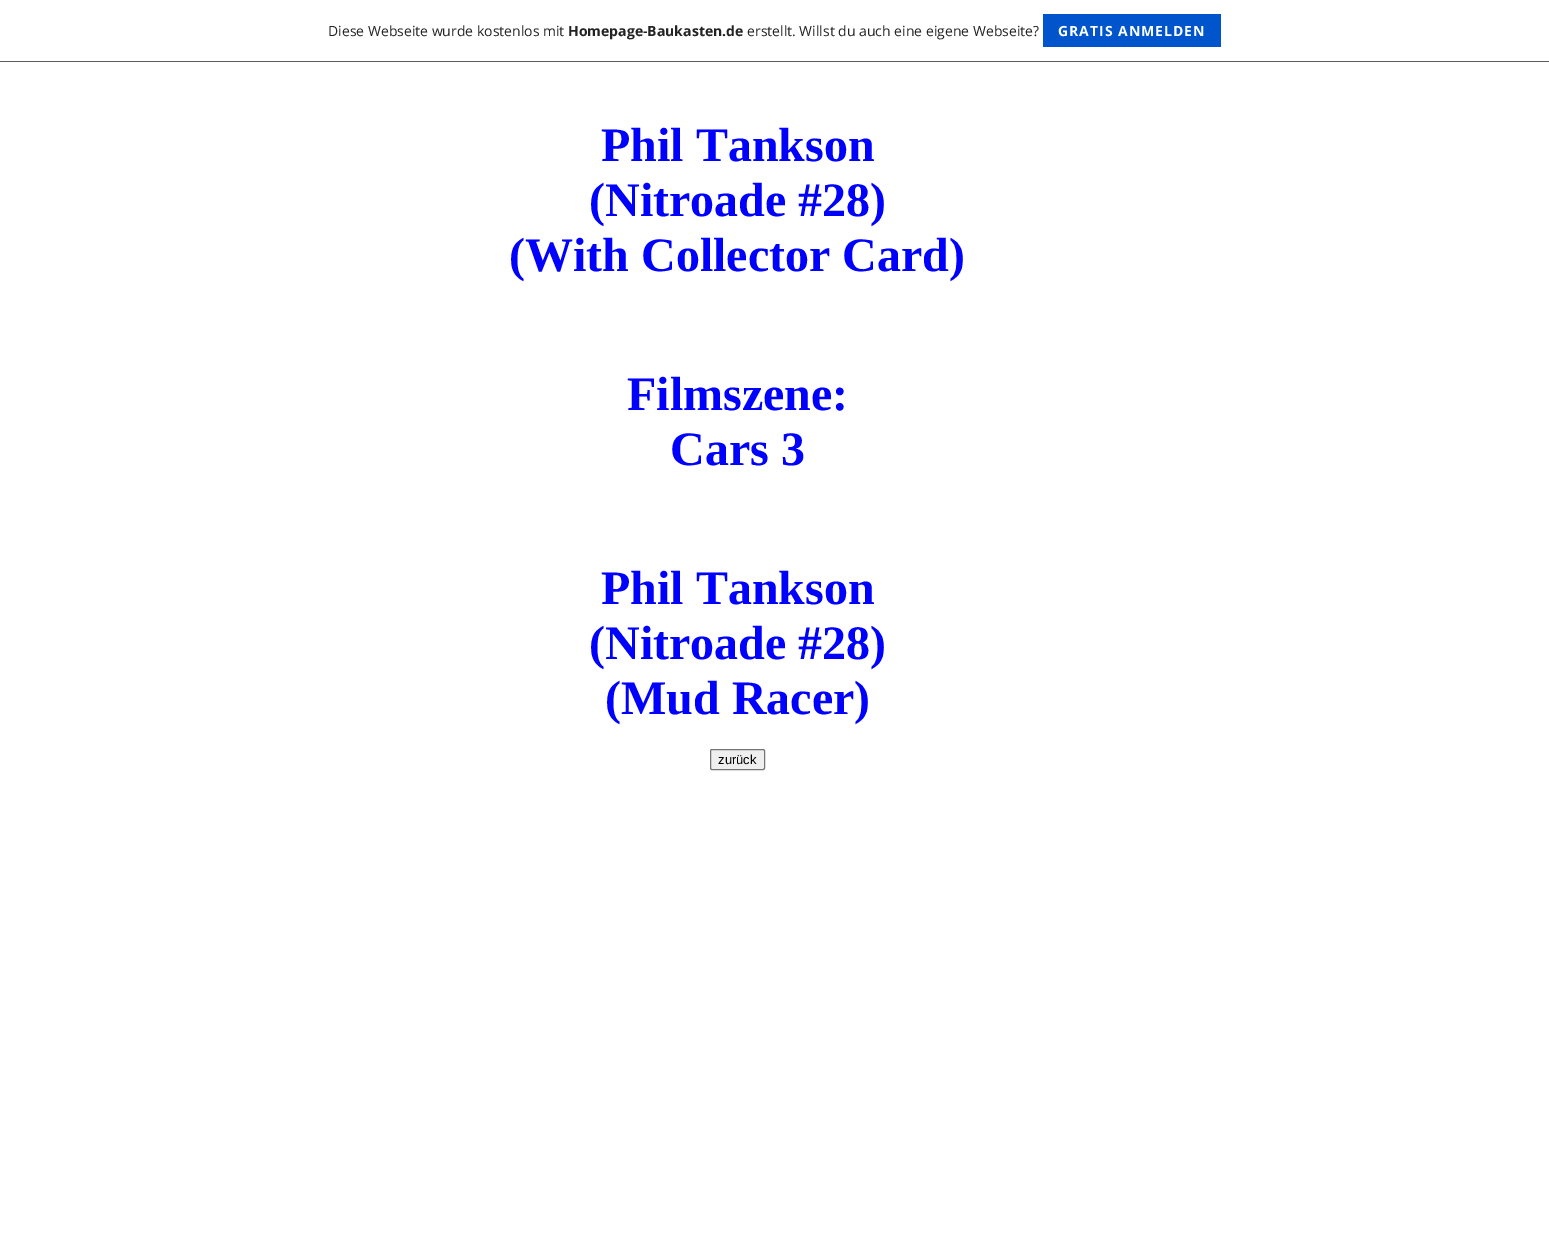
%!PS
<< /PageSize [1549 1250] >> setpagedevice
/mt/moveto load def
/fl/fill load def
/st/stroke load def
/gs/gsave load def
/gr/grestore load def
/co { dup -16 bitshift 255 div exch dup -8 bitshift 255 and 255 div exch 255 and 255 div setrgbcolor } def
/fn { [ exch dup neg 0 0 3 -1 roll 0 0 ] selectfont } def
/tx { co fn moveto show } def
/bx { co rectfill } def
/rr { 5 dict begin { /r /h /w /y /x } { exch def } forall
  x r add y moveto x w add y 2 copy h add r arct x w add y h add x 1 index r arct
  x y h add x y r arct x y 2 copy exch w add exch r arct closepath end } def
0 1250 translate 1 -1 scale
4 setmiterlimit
0 0 1549 1250 16#FFFFFF bx
0 61 1549 1 16#5A5A5A bx
1043 14 178 33 16#0055CC bx
16#EFEFEF co
710.5 749.5 54 20 1.5 rr gs fl gr
16#767676 co
st
(Diese Webseite wurde kostenlos mit) 328 36 /OpenSans-Regular 14 16#232323 tx
(Homepage-Baukasten.de) 568 36 /OpenSans-Bold 14 16#232323 tx
(erstellt. Willst du auch eine eigene Webseite?) 747 36 /OpenSans-Regular 14 16#232323 tx
/OpenSans-Bold 14 fn
16#FFFFFF co
1058 36 mt 1 0 (GRATIS ANMELDEN) ashow
(Phil Tankson) 601 161 /LiberationSerif-Bold 48 16#0000FF tx
(\(Nitroade #28\)) 589 216 /LiberationSerif-Bold 48 16#0000FF tx
(\(With Collector Card\)) 509 271 /LiberationSerif-Bold 48 16#0000FF tx
(Filmszene:) 627 410 /LiberationSerif-Bold 48 16#0000FF tx
(Cars 3) 670 465 /LiberationSerif-Bold 48 16#0000FF tx
(Phil Tankson) 601 604 /LiberationSerif-Bold 48 16#0000FF tx
(\(Nitroade #28\)) 589 659 /LiberationSerif-Bold 48 16#0000FF tx
(\(Mud Racer\)) 605 714 /LiberationSerif-Bold 48 16#0000FF tx
(zurück) 718 764 /LiberationSans-Regular 13 16#000000 tx
showpage
